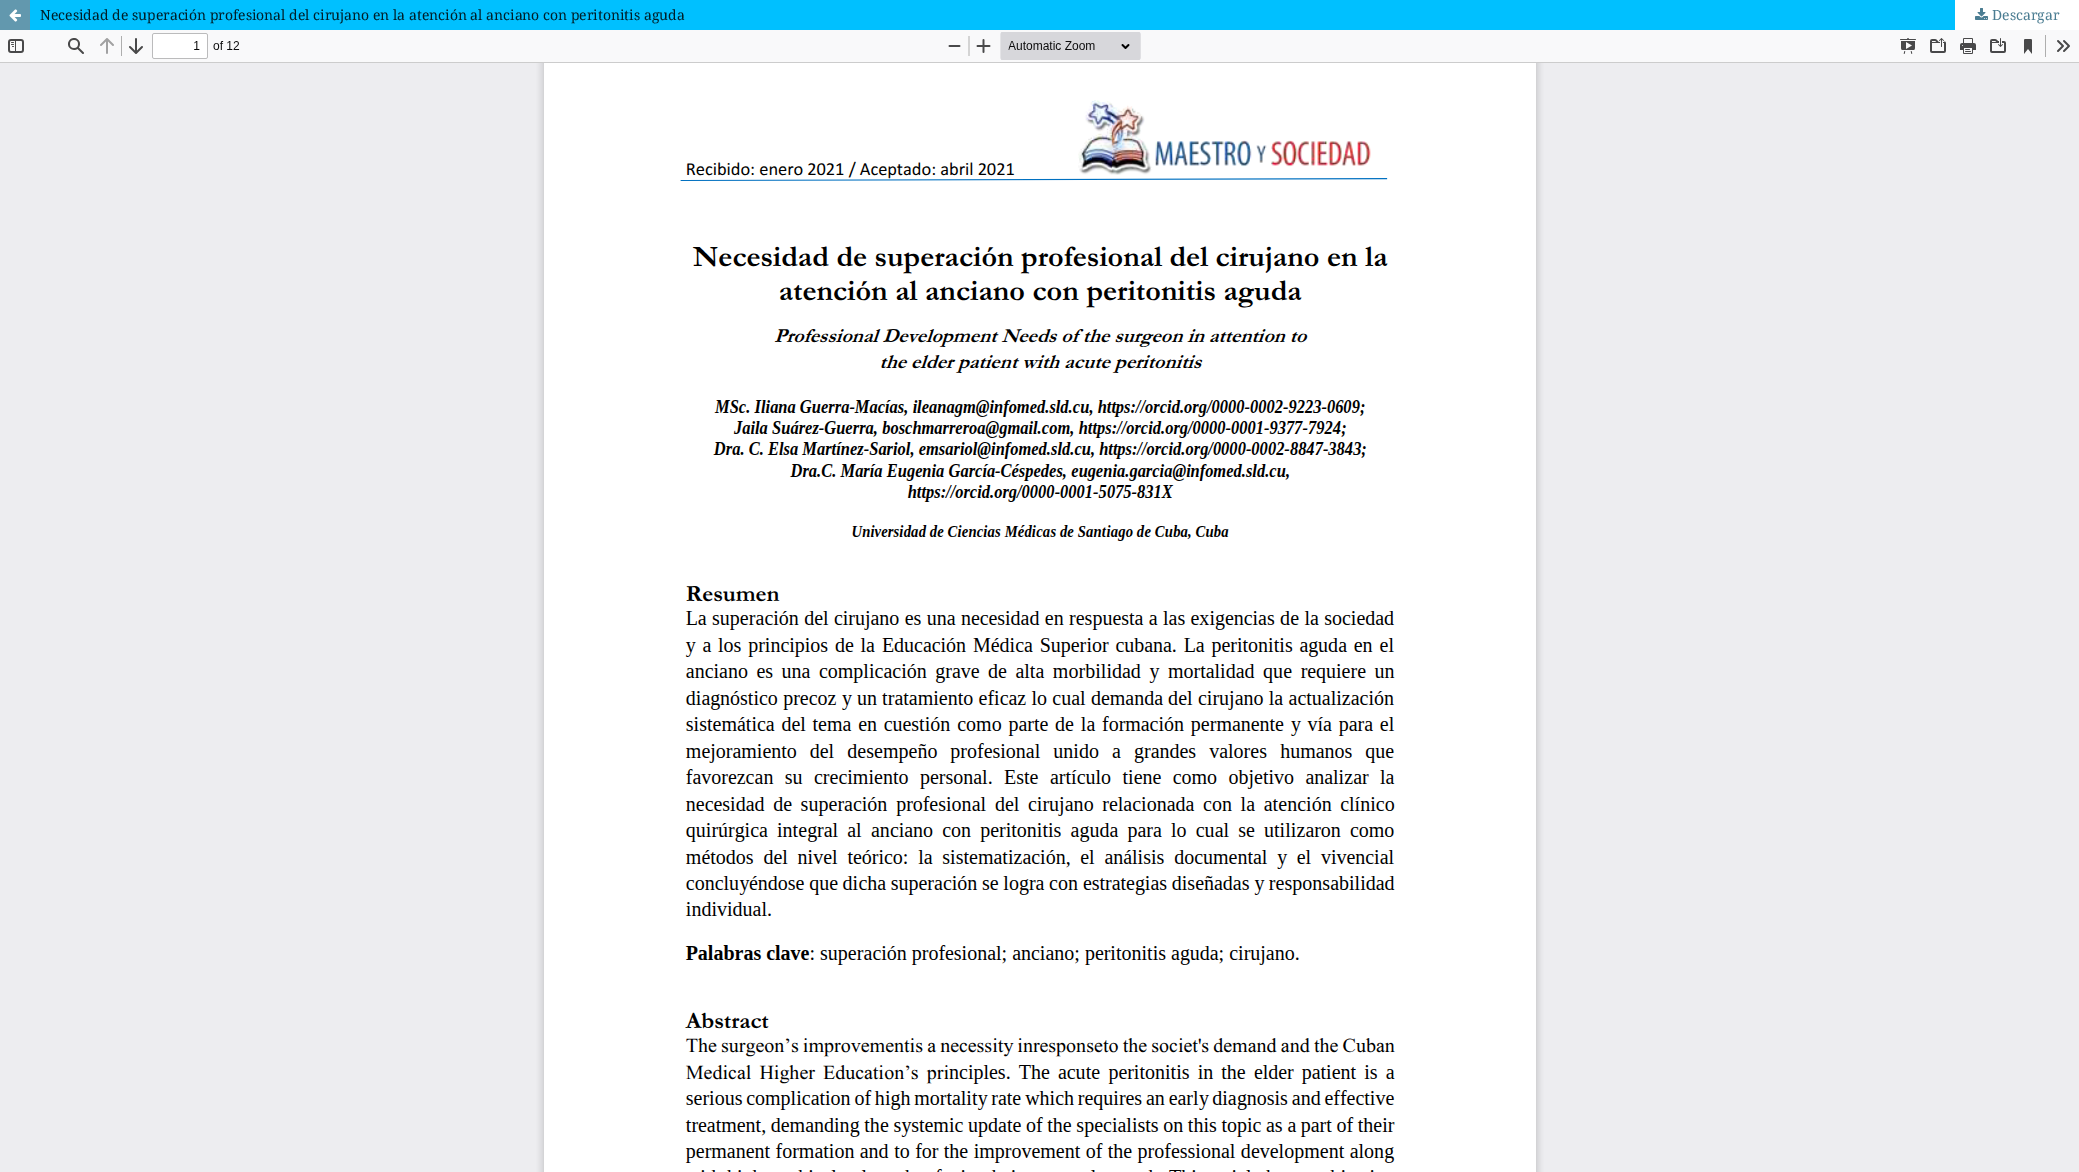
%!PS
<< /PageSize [2079 1172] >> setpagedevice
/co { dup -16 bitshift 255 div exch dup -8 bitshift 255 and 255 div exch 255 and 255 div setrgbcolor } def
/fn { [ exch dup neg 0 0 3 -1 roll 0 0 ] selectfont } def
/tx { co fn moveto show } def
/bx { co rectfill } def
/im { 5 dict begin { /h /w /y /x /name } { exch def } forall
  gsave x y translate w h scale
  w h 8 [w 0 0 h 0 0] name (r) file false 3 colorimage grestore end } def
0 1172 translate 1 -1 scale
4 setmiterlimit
0 0 2079 1172 16#FFFFFF bx
30 0 1925 30 16#00C0FF bx
0 0 30 30 16#6298AE bx
(media/1.raw) 9 9 12 13 im
(media/2.raw) 1975 8 13 12 im
(media/3.raw) 0 30 2079 1142 im
(Necesidad de superación profesional del cirujano en la atención al anciano con peritonitis aguda) 40 20 /NotoSerif-Regular 14 16#001F29 tx
(Descargar) 1992 20 /NotoSerif-Regular 14 16#4B7D92 tx
showpage
